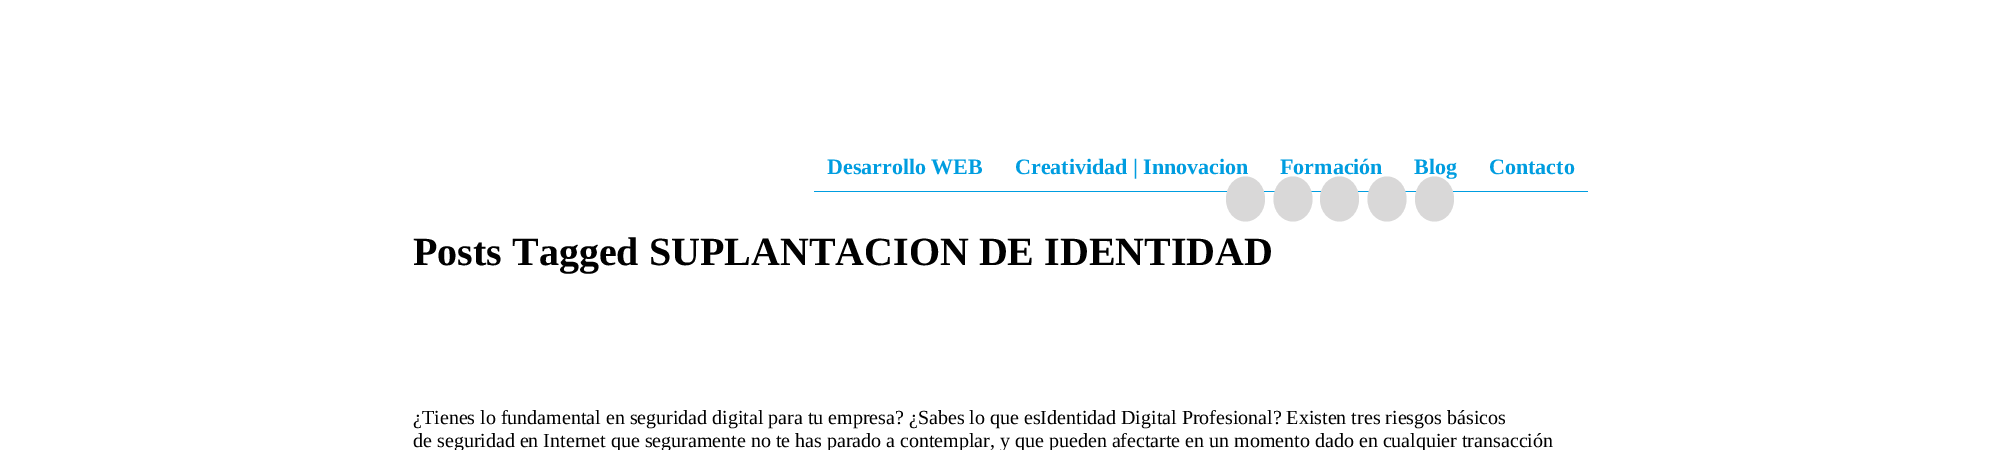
%!PS
<< /PageSize [2000 450] >> setpagedevice
/mt/moveto load def
/ct/curveto load def
/cp/closepath load def
/fl/fill load def
/co { dup -16 bitshift 255 div exch dup -8 bitshift 255 and 255 div exch 255 and 255 div setrgbcolor } def
/fn { [ exch dup neg 0 0 3 -1 roll 0 0 ] selectfont } def
/tx { co fn moveto show } def
/bx { co rectfill } def
0 450 translate 1 -1 scale
4 setmiterlimit
0 0 2000 450 16#FFFFFF bx
814 191 774 1 16#009DE0 bx
16#D9D8D8 co
1293 176.5 mt 1304 176.5 1312.5 186.5 1312.5 199 ct 1312.5 211.5 1304 221.5 1293 221.5 ct 1282 221.5 1273.5 211.5 1273.5 199 ct 1273.5 186.5 1282 176.5 1293 176.5 ct cp fl
1339.5 176.5 mt 1350.5 176.5 1359 186.5 1359 199 ct 1359 211.5 1350.5 221.5 1339.5 221.5 ct 1328.5 221.5 1320 211.5 1320 199 ct 1320 186.5 1328.5 176.5 1339.5 176.5 ct cp fl
1387 176.5 mt 1398 176.5 1406.5 186.5 1406.5 199 ct 1406.5 211.5 1398 221.5 1387 221.5 ct 1376 221.5 1367.5 211.5 1367.5 199 ct 1367.5 186.5 1376 176.5 1387 176.5 ct cp fl
(Desarrollo WEB) 827 174 /LiberationSerif-Bold 22 16#009DE0 tx
(Creatividad | Innovacion) 1015 174 /LiberationSerif-Bold 22 16#009DE0 tx
(Formación) 1280 174 /LiberationSerif-Bold 22 16#009DE0 tx
(Blog) 1414 174 /LiberationSerif-Bold 22 16#009DE0 tx
(Contacto) 1489 174 /LiberationSerif-Bold 22 16#009DE0 tx
16#D9D8D8 co
1245.5 176.5 mt 1256.5 176.5 1265 186.5 1265 199 ct 1265 211.5 1256.5 221.5 1245.5 221.5 ct 1234.5 221.5 1226 211.5 1226 199 ct 1226 186.5 1234.5 176.5 1245.5 176.5 ct cp fl
1434.5 176.5 mt 1445.5 176.5 1454 186.5 1454 199 ct 1454 211.5 1445.5 221.5 1434.5 221.5 ct 1423.5 221.5 1415 211.5 1415 199 ct 1415 186.5 1423.5 176.5 1434.5 176.5 ct cp fl
(Posts Tagged SUPLANTACION DE IDENTIDAD) 413 265 /LiberationSerif-Bold 40 16#000000 tx
(¿Tienes lo fundamental en seguridad digital para tu empresa? ¿Sabes lo que esIdentidad Digital Profesional? Existen tres riesgos básicos) 413 424 /LiberationSerif-Regular 20 16#000000 tx
(de seguridad en Internet que seguramente no te has parado a contemplar, y que pueden afectarte en un momento dado en cualquier transacción) 413 447 /LiberationSerif-Regular 20 16#000000 tx
showpage
